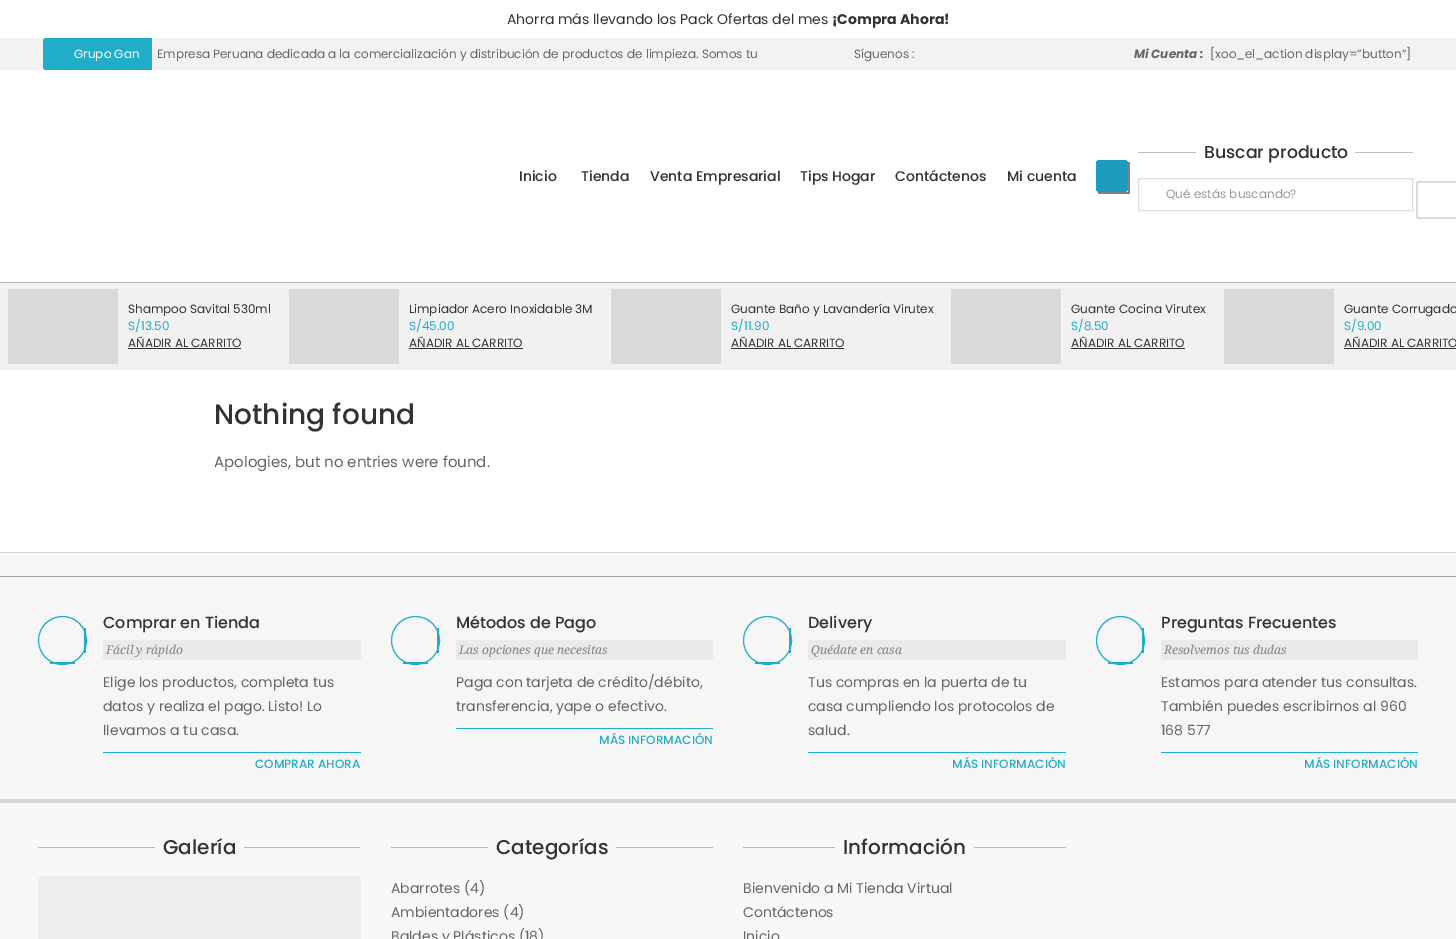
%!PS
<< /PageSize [1456 939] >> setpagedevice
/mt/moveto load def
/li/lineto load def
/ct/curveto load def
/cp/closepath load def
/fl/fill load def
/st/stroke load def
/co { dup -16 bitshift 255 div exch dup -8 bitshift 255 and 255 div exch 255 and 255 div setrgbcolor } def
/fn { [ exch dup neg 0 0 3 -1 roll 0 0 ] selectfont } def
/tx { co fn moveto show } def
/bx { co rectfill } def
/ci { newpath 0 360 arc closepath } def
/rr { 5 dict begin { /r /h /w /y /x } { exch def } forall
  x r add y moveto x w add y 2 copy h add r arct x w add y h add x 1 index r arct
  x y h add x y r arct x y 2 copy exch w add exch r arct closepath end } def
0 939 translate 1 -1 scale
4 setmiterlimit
0 0 1456 939 16#FFFFFF bx
0 38 1456 32 16#F2F2F2 bx
16#20ADC9 co
46 38 mt 152 38 li 152 70 li 46 70 li 44.5 70 43 68.5 43 67 ct 43 41 li 43 39.5 44.5 38 46 38 ct cp fl
0 282 1456 1 16#B8B8B8 bx
16#1E9CBC co
1096 160 32 32 3 rr fl
16#808080 co
1098 192 mt 1098 194 li 1130 194 li 1130 162 li 1128 162 li 1128 192 li cp fl
1138 152 58 1 16#BCBCBC bx
1355 152 58 1 16#BCBCBC bx
16#DDDDDD co
1138.5 178.5 274 32 rectstroke
0 283 1456 87 16#F1F1F1 bx
8 289 110 75 16#D9D9D9 bx
128 348 113 1 16#333333 bx
289 289 110 75 16#D9D9D9 bx
409 348 114 1 16#333333 bx
611 289 110 75 16#D9D9D9 bx
731 348 113 1 16#333333 bx
951 289 110 75 16#D9D9D9 bx
1071 348 114 1 16#333333 bx
1224 289 110 75 16#D9D9D9 bx
1344 348 112 1 16#333333 bx
0 553 1456 246 16#F6F6F6 bx
0 552 1456 1 16#D4D4D4 bx
0 576 1456 1 16#A5A5A5 bx
16#20ADC9 co
62.5 640.5 24 ci st
84 628 2 25 16#20ADC9 bx
50 662 25 2 16#20ADC9 bx
103 640 258 20 16#EAEAEA bx
103 752 258 1 16#20ADC9 bx
415.5 640.5 24 ci st
437 628 2 25 16#20ADC9 bx
403 662 25 2 16#20ADC9 bx
456 640 257 20 16#EAEAEA bx
456 728 257 1 16#20ADC9 bx
767.5 640.5 24 ci st
789 628 2 25 16#20ADC9 bx
755 662 25 2 16#20ADC9 bx
808 640 258 20 16#EAEAEA bx
808 752 258 1 16#20ADC9 bx
1120.5 640.5 24 ci st
1142 628 2 25 16#20ADC9 bx
1108 662 25 2 16#20ADC9 bx
1161 640 257 20 16#EAEAEA bx
1161 752 257 1 16#20ADC9 bx
0 803 1456 136 16#F8F8F8 bx
0 799 1456 4 16#D5D5D5 bx
38 847 117 1 16#B7B7B7 bx
244 847 116 1 16#B7B7B7 bx
16#EEEEEE co
38 876 323 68 5 rr fl
391 847 97 1 16#B7B7B7 bx
616 847 97 1 16#B7B7B7 bx
743 847 92 1 16#B7B7B7 bx
974 847 92 1 16#B7B7B7 bx
16#DBDBDB co
1419 181 mt 1456 181 li 1456 219 li 1419 219 li 1417 219 1416 218 1416 216 ct 1416 184 li 1416 182 1417 181 1419 181 ct cp 1419 183 mt 1456 183 li 1456 217 li 1419 217 li 1418 217 1418 217 1418 216 ct 1418 184 li 1418 183 1418 183 1419 183 ct cp eofill
(Ahorra más llevando los Pack Ofertas del mes) 507 24 /Poppins-Regular 14 16#333333 tx
(¡Compra Ahora!) 832 24 /Poppins-Bold 14 16#333333 tx
(Grupo Gan) 74 58 /Poppins-Regular 12 16#FFFFFF tx
(Empresa Peruana dedicada a la comercialización y distribución de productos de limpieza. Somos tu) 157 58 /Poppins-Regular 12 16#666666 tx
(Síguenos :) 854 58 /Poppins-Regular 12 16#666666 tx
(Mi Cuenta :) 1134 58 /Poppins-BoldItalic 12 16#666666 tx
([xoo_el_action display=”button”]) 1210 58 /Poppins-Regular 12 16#666666 tx
(Inicio) 519 181 /Poppins-Medium 14 16#333333 tx
(Tienda) 581 181 /Poppins-Medium 14 16#333333 tx
(Venta Empresarial) 650 181 /Poppins-Medium 14 16#333333 tx
(Tips Hogar) 800 181 /Poppins-Medium 14 16#333333 tx
(Contáctenos) 895 181 /Poppins-Medium 14 16#333333 tx
(Mi cuenta) 1007 181 /Poppins-Medium 14 16#333333 tx
(Buscar producto) 1204 158 /Poppins-Medium 17.25 16#333333 tx
(Qué estás buscando?) 1166 198 /Poppins-Regular 12 16#999999 tx
(Shampoo Savital 530ml) 128 313 /Poppins-Regular 12 16#333333 tx
(S/13.50) 128 330 /Poppins-Regular 12 16#20ADC9 tx
(AÑADIR AL CARRITO) 128 347 /Poppins-Regular 12 16#333333 tx
(Limpiador Acero Inoxidable 3M) 409 313 /Poppins-Regular 12 16#333333 tx
(S/45.00) 409 330 /Poppins-Regular 12 16#20ADC9 tx
(AÑADIR AL CARRITO) 409 347 /Poppins-Regular 12 16#333333 tx
(Guante Baño y Lavandería Virutex) 731 313 /Poppins-Regular 12 16#333333 tx
(S/11.90) 731 330 /Poppins-Regular 12 16#20ADC9 tx
(AÑADIR AL CARRITO) 731 347 /Poppins-Regular 12 16#333333 tx
(Guante Cocina Virutex) 1071 313 /Poppins-Regular 12 16#333333 tx
(S/8.50) 1071 330 /Poppins-Regular 12 16#20ADC9 tx
(AÑADIR AL CARRITO) 1071 347 /Poppins-Regular 12 16#333333 tx
(Guante Corrugado) 1344 313 /Poppins-Regular 12 16#333333 tx
(S/9.00) 1344 330 /Poppins-Regular 12 16#20ADC9 tx
(AÑADIR AL CARRITO) 1344 347 /Poppins-Regular 12 16#333333 tx
(Nothing found) 214 424 /Poppins-Medium 28 16#333333 tx
(Apologies, but no entries were found.) 214 467 /Poppins-Regular 15 16#666666 tx
(Comprar en Tienda) 103 628 /Poppins-Medium 16 16#333333 tx
(Fácil y rápido) 106 654 /NotoSerif-Italic 12 16#838383 tx
(Elige los productos, completa tus) 103 687 /Poppins-Regular 14 16#666666 tx
(datos y realiza el pago. Listo! Lo) 103 711 /Poppins-Regular 14 16#666666 tx
(llevamos a tu casa.) 103 735 /Poppins-Regular 14 16#666666 tx
(COMPRAR AHORA) 255 768 /Poppins-Medium 12 16#20ADC9 tx
(Métodos de Pago) 456 628 /Poppins-Medium 16 16#333333 tx
(Las opciones que necesitas) 459 654 /NotoSerif-Italic 12 16#838383 tx
(Paga con tarjeta de crédito/débito,) 456 687 /Poppins-Regular 14 16#666666 tx
(transferencia, yape o efectivo.) 456 711 /Poppins-Regular 14 16#666666 tx
(MÁS INFORMACIÓN) 599 744 /Poppins-Medium 12 16#20ADC9 tx
(Delivery) 808 628 /Poppins-Medium 16 16#333333 tx
(Quédate en casa) 811 654 /NotoSerif-Italic 12 16#838383 tx
(Tus compras en la puerta de tu) 808 687 /Poppins-Regular 14 16#666666 tx
(casa cumpliendo los protocolos de) 808 711 /Poppins-Regular 14 16#666666 tx
(salud.) 808 735 /Poppins-Regular 14 16#666666 tx
(MÁS INFORMACIÓN) 952 768 /Poppins-Medium 12 16#20ADC9 tx
(Preguntas Frecuentes) 1161 628 /Poppins-Medium 16 16#333333 tx
(Resolvemos tus dudas) 1164 654 /NotoSerif-Italic 12 16#838383 tx
(Estamos para atender tus consultas.) 1161 687 /Poppins-Regular 14 16#666666 tx
(También puedes escribirnos al 960) 1161 711 /Poppins-Regular 14 16#666666 tx
(168 577) 1161 735 /Poppins-Regular 14 16#666666 tx
(MÁS INFORMACIÓN) 1304 768 /Poppins-Medium 12 16#20ADC9 tx
(Galería) 163 854 /Poppins-Medium 20 16#333333 tx
(Categorías) 496 854 /Poppins-Medium 20 16#333333 tx
(Abarrotes \(4\)) 391 893 /Poppins-Regular 14 16#666666 tx
(Ambientadores \(4\)) 391 917 /Poppins-Regular 14 16#666666 tx
(Baldes y Plásticos \(18\)) 391 941 /Poppins-Regular 14 16#666666 tx
(Información) 843 854 /Poppins-Medium 20 16#333333 tx
(Bienvenido a Mi Tienda Virtual) 743 893 /Poppins-Regular 14 16#666666 tx
(Contáctenos) 743 917 /Poppins-Regular 14 16#666666 tx
(Inicio) 743 941 /Poppins-Regular 14 16#666666 tx
showpage
